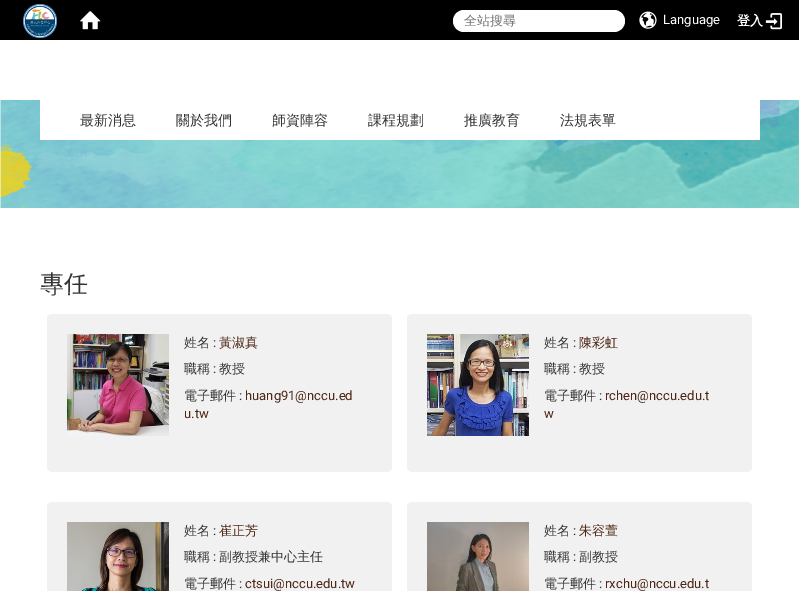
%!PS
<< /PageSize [799 591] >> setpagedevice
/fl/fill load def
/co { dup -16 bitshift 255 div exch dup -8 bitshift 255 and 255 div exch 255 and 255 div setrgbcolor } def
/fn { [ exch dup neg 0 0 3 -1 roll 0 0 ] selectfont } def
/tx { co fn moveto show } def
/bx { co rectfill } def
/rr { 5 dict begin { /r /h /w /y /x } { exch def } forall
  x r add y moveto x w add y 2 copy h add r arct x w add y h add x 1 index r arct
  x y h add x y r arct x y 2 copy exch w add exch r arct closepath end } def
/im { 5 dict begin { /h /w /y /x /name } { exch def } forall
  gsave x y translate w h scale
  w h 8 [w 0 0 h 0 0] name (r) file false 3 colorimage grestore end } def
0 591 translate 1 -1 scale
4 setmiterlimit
0 0 799 591 16#FFFFFF bx
0 0 799 40 16#000000 bx
(media/1.raw) 23 4 34 34 im
(media/2.raw) 80 11 21 19 im
16#FFFFFF co
453 10 172 22 11 rr fl
(media/3.raw) 639 11 18 18 im
(media/4.raw) 765 13 18 17 im
(media/5.raw) 0 100 799 108 im
40 100 720 40 16#FFFFFF bx
16#F1F1F1 co
47 314 345 158 5 rr fl
(media/6.raw) 67 334 102 102 im
407 314 345 158 5 rr fl
(media/7.raw) 427 334 102 102 im
47 502 345 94 5 rr fl
(media/8.raw) 67 522 102 69 im
407 502 345 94 5 rr fl
(media/9.raw) 427 522 102 69 im
(全站搜尋) 464 25 /WenQuanYiZenHei-Medium 13 16#757575 tx
(Language) 663 24 /Roboto-Regular 13 16#FFFFFF tx
(登入) 737 25 /WenQuanYiZenHei-Bold 13 16#FFFFFF tx
(最新消息) 80 125 /WenQuanYiZenHei-Medium 14 16#333333 tx
(關於我們) 176 125 /WenQuanYiZenHei-Medium 14 16#333333 tx
(師資陣容) 272 125 /WenQuanYiZenHei-Medium 14 16#333333 tx
(課程規劃) 368 125 /WenQuanYiZenHei-Medium 14 16#333333 tx
(推廣教育) 464 125 /WenQuanYiZenHei-Medium 14 16#333333 tx
(法規表單) 560 125 /WenQuanYiZenHei-Medium 14 16#333333 tx
(專任) 40 292 /WenQuanYiZenHei-Medium 24 16#333333 tx
(姓名) 184 347 /WenQuanYiZenHei-Medium 13 16#333333 tx
(:) 213 347 /Roboto-Regular 13 16#333333 tx
(黃淑真) 219 347 /WenQuanYiZenHei-Medium 13 16#4E2615 tx
(職稱) 184 373 /WenQuanYiZenHei-Medium 13 16#333333 tx
(:) 213 373 /Roboto-Regular 13 16#333333 tx
(教授) 219 373 /WenQuanYiZenHei-Medium 13 16#333333 tx
(電子郵件) 184 400 /WenQuanYiZenHei-Medium 13 16#333333 tx
(:) 239 400 /Roboto-Regular 13 16#333333 tx
(huang91@nccu.ed) 245 400 /Roboto-Regular 13 16#4E2615 tx
(u.tw) 184 418 /Roboto-Regular 13 16#4E2615 tx
(姓名) 544 347 /WenQuanYiZenHei-Medium 13 16#333333 tx
(:) 573 347 /Roboto-Regular 13 16#333333 tx
(陳彩虹) 579 347 /WenQuanYiZenHei-Medium 13 16#4E2615 tx
(職稱) 544 373 /WenQuanYiZenHei-Medium 13 16#333333 tx
(:) 573 373 /Roboto-Regular 13 16#333333 tx
(教授) 579 373 /WenQuanYiZenHei-Medium 13 16#333333 tx
(電子郵件) 544 400 /WenQuanYiZenHei-Medium 13 16#333333 tx
(:) 599 400 /Roboto-Regular 13 16#333333 tx
(rchen@nccu.edu.t) 605 400 /Roboto-Regular 13 16#4E2615 tx
(w) 544 418 /Roboto-Regular 13 16#4E2615 tx
(姓名) 184 535 /WenQuanYiZenHei-Medium 13 16#333333 tx
(:) 213 535 /Roboto-Regular 13 16#333333 tx
(崔正芳) 219 535 /WenQuanYiZenHei-Medium 13 16#4E2615 tx
(職稱) 184 561 /WenQuanYiZenHei-Medium 13 16#333333 tx
(:) 213 561 /Roboto-Regular 13 16#333333 tx
(副教授兼中心主任) 219 561 /WenQuanYiZenHei-Medium 13 16#333333 tx
(電子郵件) 184 588 /WenQuanYiZenHei-Medium 13 16#333333 tx
(:) 239 588 /Roboto-Regular 13 16#333333 tx
(ctsui@nccu.edu.tw) 245 588 /Roboto-Regular 13 16#4E2615 tx
(姓名) 544 535 /WenQuanYiZenHei-Medium 13 16#333333 tx
(:) 573 535 /Roboto-Regular 13 16#333333 tx
(朱容萱) 579 535 /WenQuanYiZenHei-Medium 13 16#4E2615 tx
(職稱) 544 561 /WenQuanYiZenHei-Medium 13 16#333333 tx
(:) 573 561 /Roboto-Regular 13 16#333333 tx
(副教授) 579 561 /WenQuanYiZenHei-Medium 13 16#333333 tx
(電子郵件) 544 588 /WenQuanYiZenHei-Medium 13 16#333333 tx
(:) 599 588 /Roboto-Regular 13 16#333333 tx
(rxchu@nccu.edu.t) 605 588 /Roboto-Regular 13 16#4E2615 tx
showpage
